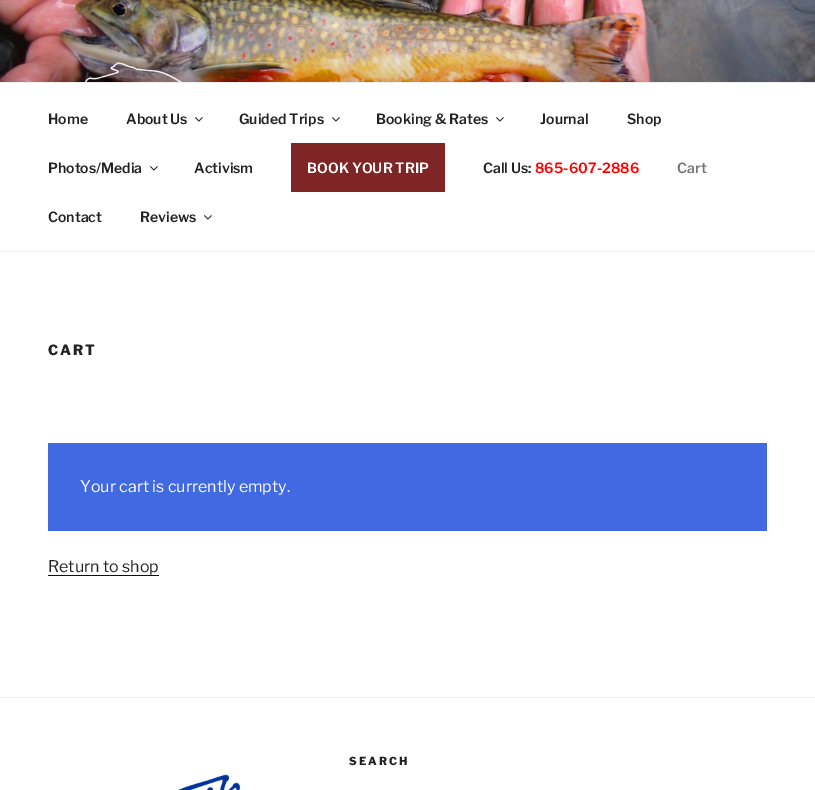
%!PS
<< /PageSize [815 790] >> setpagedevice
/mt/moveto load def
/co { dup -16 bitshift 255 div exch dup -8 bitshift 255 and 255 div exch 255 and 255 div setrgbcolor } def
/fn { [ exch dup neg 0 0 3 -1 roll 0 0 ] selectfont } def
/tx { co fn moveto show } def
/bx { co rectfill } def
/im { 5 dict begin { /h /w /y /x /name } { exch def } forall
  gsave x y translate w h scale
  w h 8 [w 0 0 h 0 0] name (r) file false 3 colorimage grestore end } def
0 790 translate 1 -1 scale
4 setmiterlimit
0 0 815 790 16#FFFFFF bx
(media/1.raw) 0 0 815 82 im
(media/2.raw) 85 62 97 20 im
0 82 815 1 16#EEEEEE bx
0 251 815 1 16#EEEEEE bx
(media/3.raw) 195 117 8 5 im
(media/3.raw) 332 117 8 5 im
(media/3.raw) 496 117 8 5 im
(media/3.raw) 150 166 8 5 im
291 143 154 49 16#802525 bx
(media/3.raw) 204 215 8 5 im
48 443 719 88 16#4169E1 bx
48 575 111 1 16#0F0F0F bx
0 697 815 1 16#EEEEEE bx
(media/4.raw) 177 773 64 17 im
(Home) 48 124 /LibreFranklin-SemiBold 14 16#222222 tx
(About Us) 126 124 /LibreFranklin-SemiBold 14 16#222222 tx
(Guided Trips) 239 124 /LibreFranklin-SemiBold 14 16#222222 tx
(Booking & Rates) 376 124 /LibreFranklin-SemiBold 14 16#222222 tx
(Journal) 540 124 /LibreFranklin-SemiBold 14 16#222222 tx
(Shop) 627 124 /LibreFranklin-SemiBold 14 16#222222 tx
(Photos/Media) 48 173 /LibreFranklin-SemiBold 14 16#222222 tx
(Activism) 194 173 /LibreFranklin-SemiBold 14 16#222222 tx
(BOOK YOUR TRIP) 307 173 /LibreFranklin-SemiBold 14 16#FFFFFF tx
(Call Us:) 483 173 /LibreFranklin-SemiBold 14 16#222222 tx
(865-607-2886) 535 173 /LibreFranklin-SemiBold 14 16#FF0000 tx
(Cart) 677 173 /LibreFranklin-SemiBold 14 16#767676 tx
(Contact) 48 222 /LibreFranklin-SemiBold 14 16#222222 tx
(Reviews) 140 222 /LibreFranklin-SemiBold 14 16#222222 tx
/LibreFranklin-ExtraBold 14 fn
48 355 mt 2 0 (CART) ashow
(Your cart is currently empty.) 80 492 /LibreFranklin-Regular 16 16#FFFFFF tx
(Return to shop) 48 572 /LibreFranklin-Regular 16 16#222222 tx
/LibreFranklin-ExtraBold 11 fn
349 765 mt 2 0 (SEARCH) ashow
showpage
